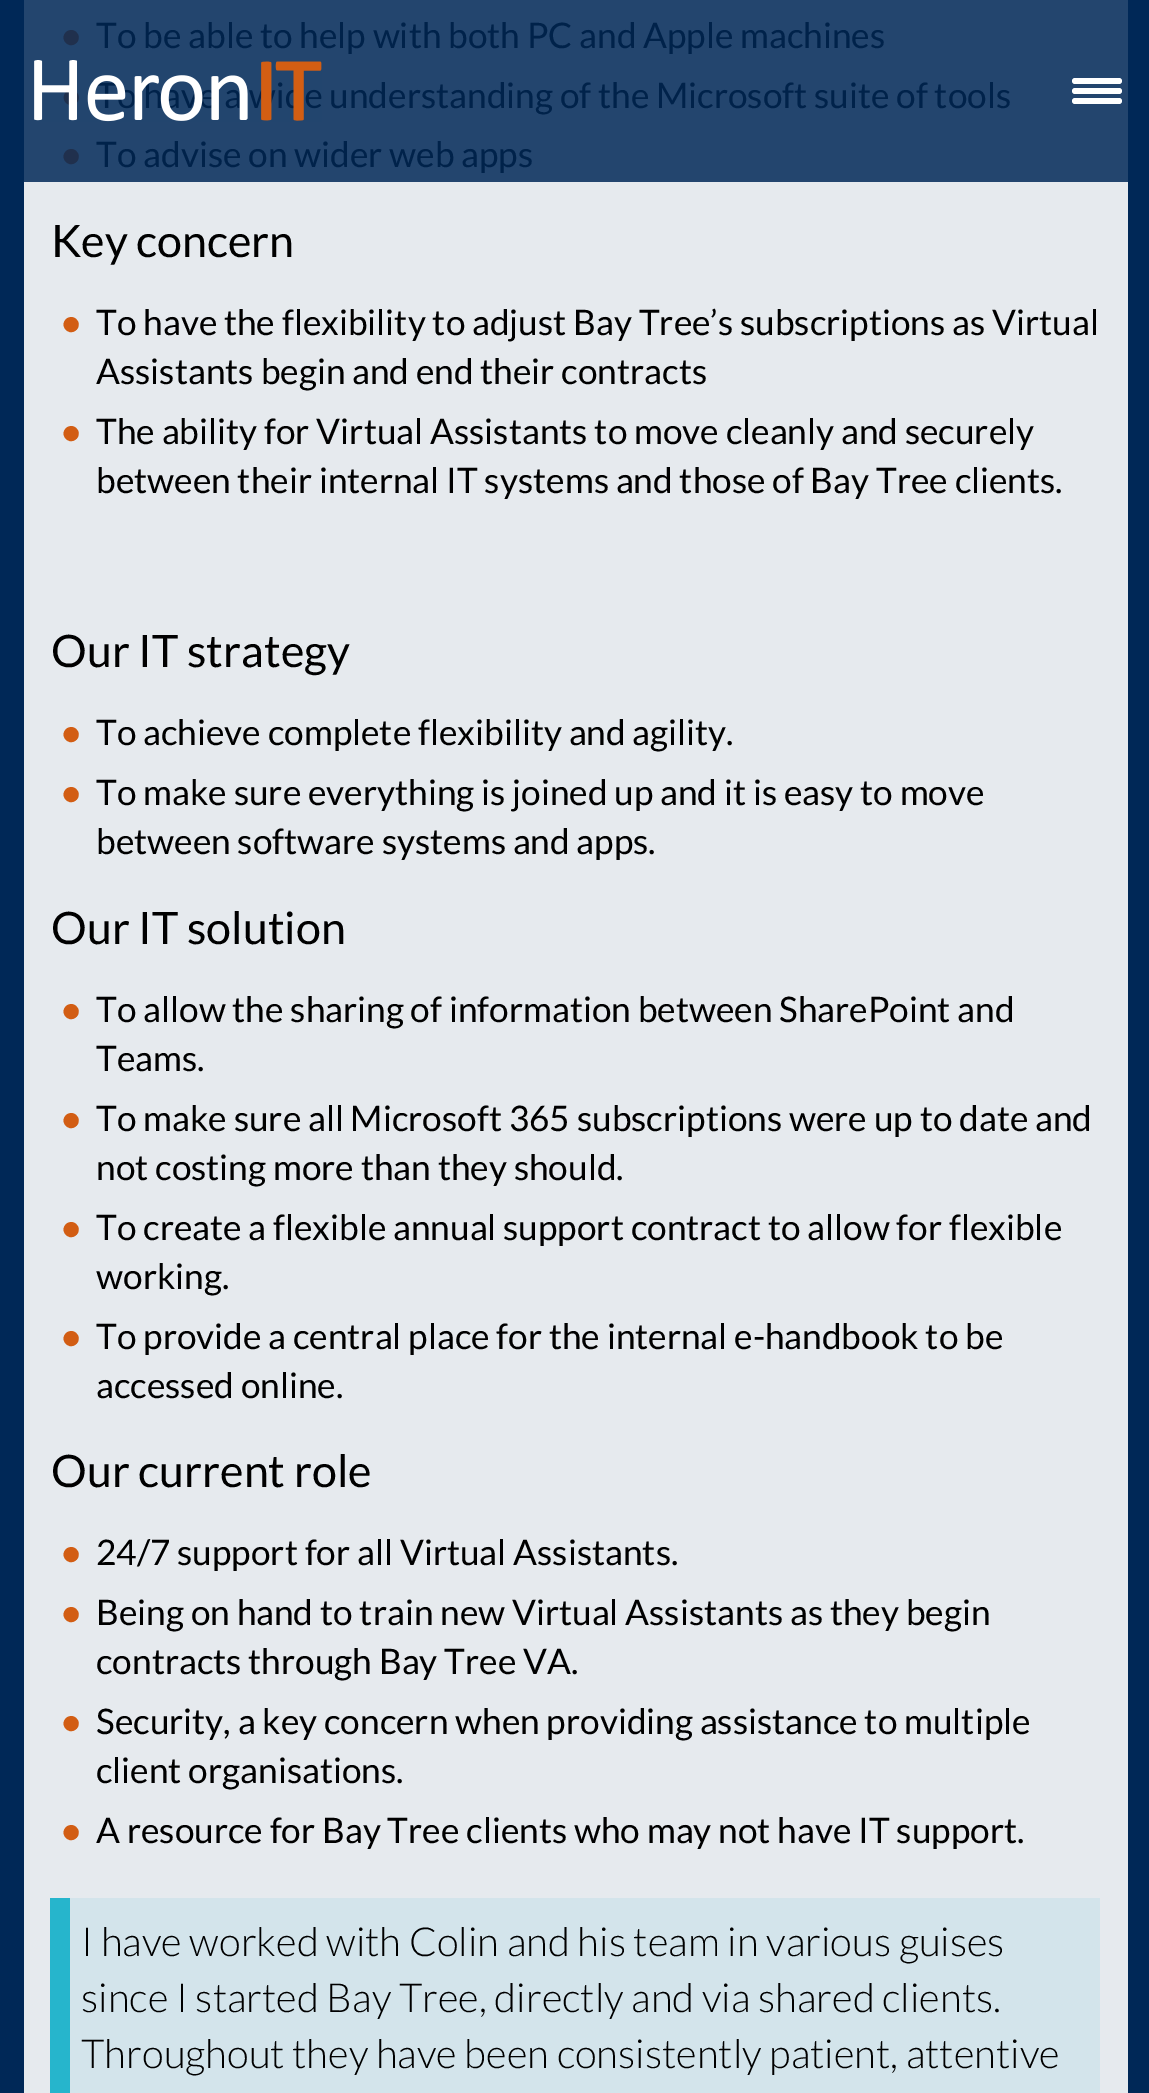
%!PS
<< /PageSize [1149 2093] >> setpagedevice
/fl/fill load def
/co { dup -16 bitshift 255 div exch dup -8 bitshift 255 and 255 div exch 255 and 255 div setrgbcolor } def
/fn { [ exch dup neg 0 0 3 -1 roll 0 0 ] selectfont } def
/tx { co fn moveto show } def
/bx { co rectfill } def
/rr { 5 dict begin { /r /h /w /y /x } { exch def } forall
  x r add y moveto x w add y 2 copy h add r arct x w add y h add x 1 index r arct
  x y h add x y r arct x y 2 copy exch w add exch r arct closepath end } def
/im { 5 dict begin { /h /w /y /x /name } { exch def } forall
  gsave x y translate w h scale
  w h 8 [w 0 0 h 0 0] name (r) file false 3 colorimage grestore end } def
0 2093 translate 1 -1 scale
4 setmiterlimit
0 0 1149 2093 16#002857 bx
24 182 1104 1911 16#E6EAEE bx
24 0 1104 182 16#23456E bx
70 1898 1030 195 16#D3E4EB bx
50 1898 20 195 16#26B5CC bx
16#FFFFFF co
1072 88 50 6 3 rr fl
1072 78 50 6 3 rr fl
1072 98 50 6 3 rr fl
(•) 61 48 /Lato-Bold 35.2 16#20304D tx
(To be able to help with both PC and Apple machines) 96 48 /Lato-Regular 35.2 16#00224A tx
(To have a wide understanding of the Microsoft suite of tools) 96 108 /Lato-Regular 35.2 16#00224A tx
(•) 61 167 /Lato-Bold 35.2 16#20304D tx
(To advise on wider web apps) 96 167 /Lato-Regular 35.2 16#00224A tx
(Key concern) 51 257 /Lato-Regular 44.75 16#000000 tx
(•) 61 335 /Lato-Bold 35.2 16#D25D13 tx
(To have the flexibility to adjust Bay Tree’s subscriptions as Virtual) 96 335 /Lato-Regular 35.2 16#000000 tx
(Assistants begin and end their contracts) 96 384 /Lato-Regular 35.2 16#000000 tx
(•) 61 444 /Lato-Bold 35.2 16#D25D13 tx
(The ability for Virtual Assistants to move cleanly and securely) 96 444 /Lato-Regular 35.2 16#000000 tx
(between their internal IT systems and those of Bay Tree clients.) 96 493 /Lato-Regular 35.2 16#000000 tx
(Our IT strategy) 51 667 /Lato-Regular 44.75 16#000000 tx
(•) 61 745 /Lato-Bold 35.2 16#D25D13 tx
(To achieve complete flexibility and agility.) 96 745 /Lato-Regular 35.2 16#000000 tx
(•) 61 805 /Lato-Bold 35.2 16#D25D13 tx
(To make sure everything is joined up and it is easy to move) 96 805 /Lato-Regular 35.2 16#000000 tx
(between software systems and apps.) 96 854 /Lato-Regular 35.2 16#000000 tx
(Our IT solution) 51 944 /Lato-Regular 44.75 16#000000 tx
(•) 61 1022 /Lato-Bold 35.2 16#D25D13 tx
(To allow the sharing of information between SharePoint and) 96 1022 /Lato-Regular 35.2 16#000000 tx
(Teams.) 96 1071 /Lato-Regular 35.2 16#000000 tx
(•) 61 1131 /Lato-Bold 35.2 16#D25D13 tx
(To make sure all Microsoft 365 subscriptions were up to date and) 96 1131 /Lato-Regular 35.2 16#000000 tx
(not costing more than they should.) 96 1180 /Lato-Regular 35.2 16#000000 tx
(•) 61 1240 /Lato-Bold 35.2 16#D25D13 tx
(To create a flexible annual support contract to allow for flexible) 96 1240 /Lato-Regular 35.2 16#000000 tx
(working.) 96 1289 /Lato-Regular 35.2 16#000000 tx
(•) 61 1349 /Lato-Bold 35.2 16#D25D13 tx
(To provide a central place for the internal e-handbook to be) 96 1349 /Lato-Regular 35.2 16#000000 tx
(accessed online.) 96 1398 /Lato-Regular 35.2 16#000000 tx
(Our current role) 51 1487 /Lato-Regular 44.75 16#000000 tx
(•) 61 1565 /Lato-Bold 35.2 16#D25D13 tx
(24/7 support for all Virtual Assistants.) 96 1565 /Lato-Regular 35.2 16#000000 tx
(•) 61 1625 /Lato-Bold 35.2 16#D25D13 tx
(Being on hand to train new Virtual Assistants as they begin) 96 1625 /Lato-Regular 35.2 16#000000 tx
(contracts through Bay Tree VA.) 96 1674 /Lato-Regular 35.2 16#000000 tx
(•) 61 1734 /Lato-Bold 35.2 16#D25D13 tx
(Security, a key concern when providing assistance to multiple) 96 1734 /Lato-Regular 35.2 16#000000 tx
(client organisations.) 96 1783 /Lato-Regular 35.2 16#000000 tx
(•) 61 1843 /Lato-Bold 35.2 16#D25D13 tx
(A resource for Bay Tree clients who may not have IT support.) 96 1843 /Lato-Regular 35.2 16#000000 tx
(I have worked with Colin and his team in various guises) 81 1956 /Lato-Light 40 16#000000 tx
(since I started Bay Tree, directly and via shared clients.) 81 2012 /Lato-Light 40 16#000000 tx
(Throughout they have been consistently patient, attentive) 81 2068 /Lato-Light 40 16#000000 tx
(media/1.raw) 34 60 288 62 im
showpage
